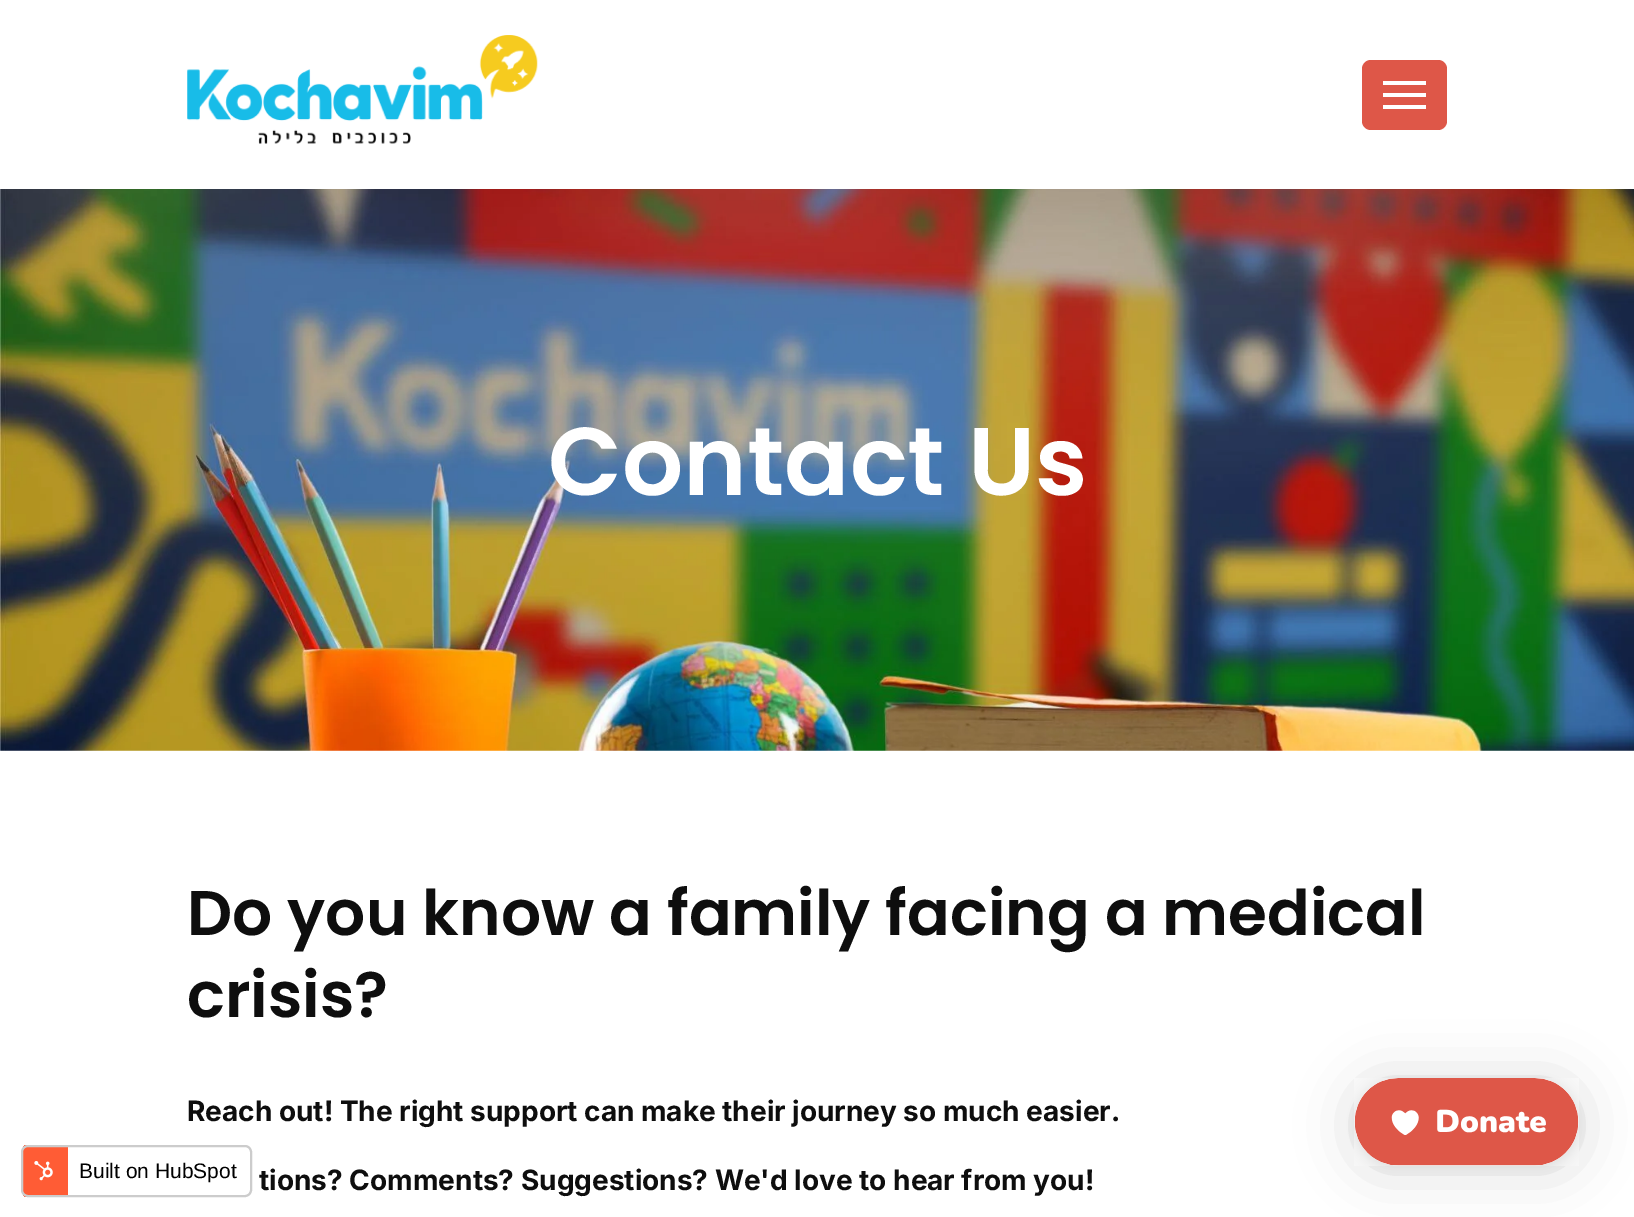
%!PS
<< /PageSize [1634 1217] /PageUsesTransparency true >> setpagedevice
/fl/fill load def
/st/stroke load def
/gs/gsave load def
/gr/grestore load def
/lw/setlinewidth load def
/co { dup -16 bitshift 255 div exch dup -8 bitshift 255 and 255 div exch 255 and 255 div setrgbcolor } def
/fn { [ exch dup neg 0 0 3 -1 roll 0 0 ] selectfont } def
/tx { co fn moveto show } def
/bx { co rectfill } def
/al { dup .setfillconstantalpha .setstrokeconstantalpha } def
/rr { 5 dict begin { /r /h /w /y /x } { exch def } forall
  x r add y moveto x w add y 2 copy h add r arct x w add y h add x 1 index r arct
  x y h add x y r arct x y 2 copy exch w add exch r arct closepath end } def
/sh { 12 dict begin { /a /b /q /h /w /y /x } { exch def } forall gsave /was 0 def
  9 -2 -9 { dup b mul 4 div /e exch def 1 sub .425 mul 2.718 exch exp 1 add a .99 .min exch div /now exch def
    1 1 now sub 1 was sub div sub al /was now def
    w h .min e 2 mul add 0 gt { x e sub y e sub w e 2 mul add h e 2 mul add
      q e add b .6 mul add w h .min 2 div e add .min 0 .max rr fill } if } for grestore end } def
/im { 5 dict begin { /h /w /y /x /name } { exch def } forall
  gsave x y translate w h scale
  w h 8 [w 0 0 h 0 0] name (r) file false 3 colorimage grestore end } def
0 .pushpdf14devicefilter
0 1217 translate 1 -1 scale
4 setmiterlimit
0 0 1634 1217 16#FFFFFF bx
gs
21 1145 231 52 7 rr clip newpath
23 1145 45 52 16#FF5C35 bx
gr
16#CCCCCC co
2 lw
22 1146 229 50 6 rr st
(media/1.raw) 34 1161 19 20 im
(media/2.raw) 187 35 351 109 im
16#DE5748 co
1362 60 85 70 9 rr fl
1383 81 43 4 16#FFFFFF bx
1383 93 43 4 16#FFFFFF bx
1383 105 43 4 16#FFFFFF bx
(media/3.raw) 0 189 1634 562 im
16#000000 co
1355 1082 224 87 43.5 28 .16 sh
1355 1080 224 87 43.5 5 .06 sh
(media/4.raw) 1354 1078 225 88 im
(Built on HubSpot) 79 1178 /LiberationSans-Regular 21 16#000000 tx
(Contact Us) 548 495 /Poppins-SemiBold 96.25 16#FFFFFF tx
(Do you know a family facing a medical) 187 935 /Poppins-SemiBold 63 16#0E0E0E tx
(crisis?) 187 1017 /Poppins-SemiBold 63 16#0E0E0E tx
(Reach out! The right support can make their journey so much easier.) 187 1121 /Inter-Bold 28 16#0E0E0E tx
(tions? Comments? Suggestions? We'd love to hear from you!) 259 1190 /Inter-Bold 28 16#0E0E0E tx
.poppdf14devicefilter showpage
